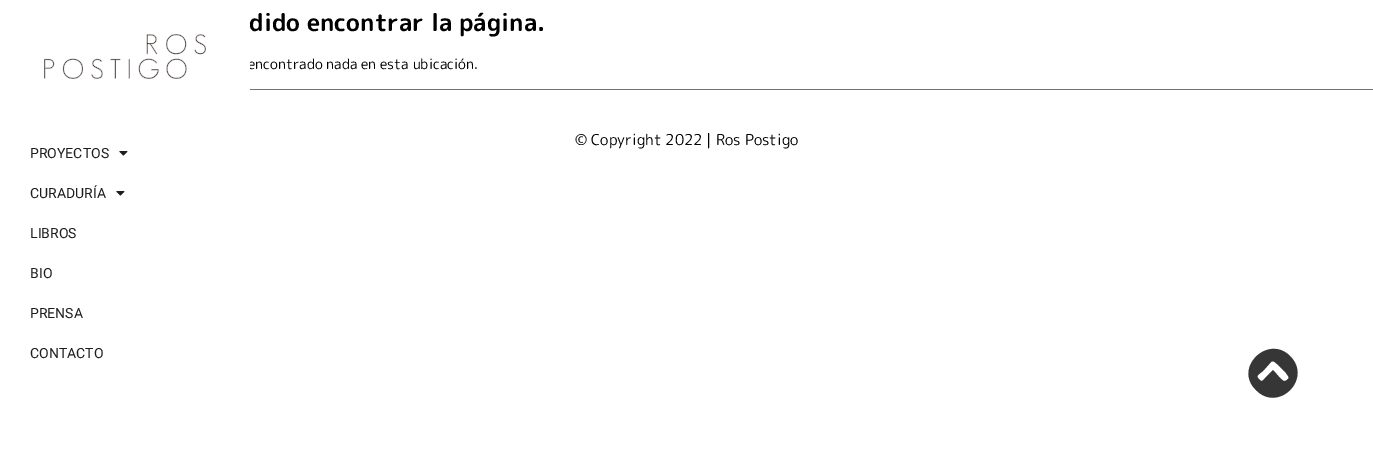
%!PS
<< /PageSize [1373 475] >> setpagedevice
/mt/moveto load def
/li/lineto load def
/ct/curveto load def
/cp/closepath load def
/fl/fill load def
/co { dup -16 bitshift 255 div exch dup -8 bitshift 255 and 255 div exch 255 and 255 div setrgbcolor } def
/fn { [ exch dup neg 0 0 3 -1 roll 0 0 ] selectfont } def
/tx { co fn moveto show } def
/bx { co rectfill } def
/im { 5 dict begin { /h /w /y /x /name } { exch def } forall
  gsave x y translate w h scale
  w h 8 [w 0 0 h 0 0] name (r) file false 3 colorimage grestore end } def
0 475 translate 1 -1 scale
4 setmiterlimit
0 0 1373 475 16#FFFFFF bx
250 89 1123 1 16#727272 bx
(media/1.raw) 44 34 162 45 im
(media/2.raw) 119 151 9 5 im
(media/2.raw) 116 191 9 5 im
16#363636 co
1256 390 mt 1233 368 1268 334 1290 356 ct 1313 379 1278 413 1256 390 ct cp 1271 362 mt 1263 371 li 1258 375 1255 376 1260 380 ct 1262 383 1265 378 1266 377 ct 1273 370 li 1275 372 1282 381 1284 381 ct 1286 381 1287 380 1288 379 ct 1290 377 1287 375 1286 373 ct 1277 364 li 1276 363 1273 360 1271 362 ct cp fl
(dido encontrar la página.) 249 31 /RoundedMplus1cBold-Bold 24 16#000000 tx
(encontrado nada en esta ubicación.) 248 69 /RoundedMplus1c-Regular 14 16#000000 tx
(© Copyright 2022 | Ros Postigo) 575 145 /RoundedMplus1c-Regular 15 16#000000 tx
248 62 2 7 16#FFFFFF bx
(PROYECTOS) 30 158 /Roboto-Regular 14 16#1D1D1D tx
(CURADURÍA) 30 198 /Roboto-Regular 14 16#1D1D1D tx
(LIBROS) 30 238 /Roboto-Regular 14 16#1D1D1D tx
(BIO) 30 278 /Roboto-Regular 14 16#1D1D1D tx
(PRENSA) 30 318 /Roboto-Regular 14 16#1D1D1D tx
(CONTACTO) 30 358 /Roboto-Regular 14 16#1D1D1D tx
showpage
